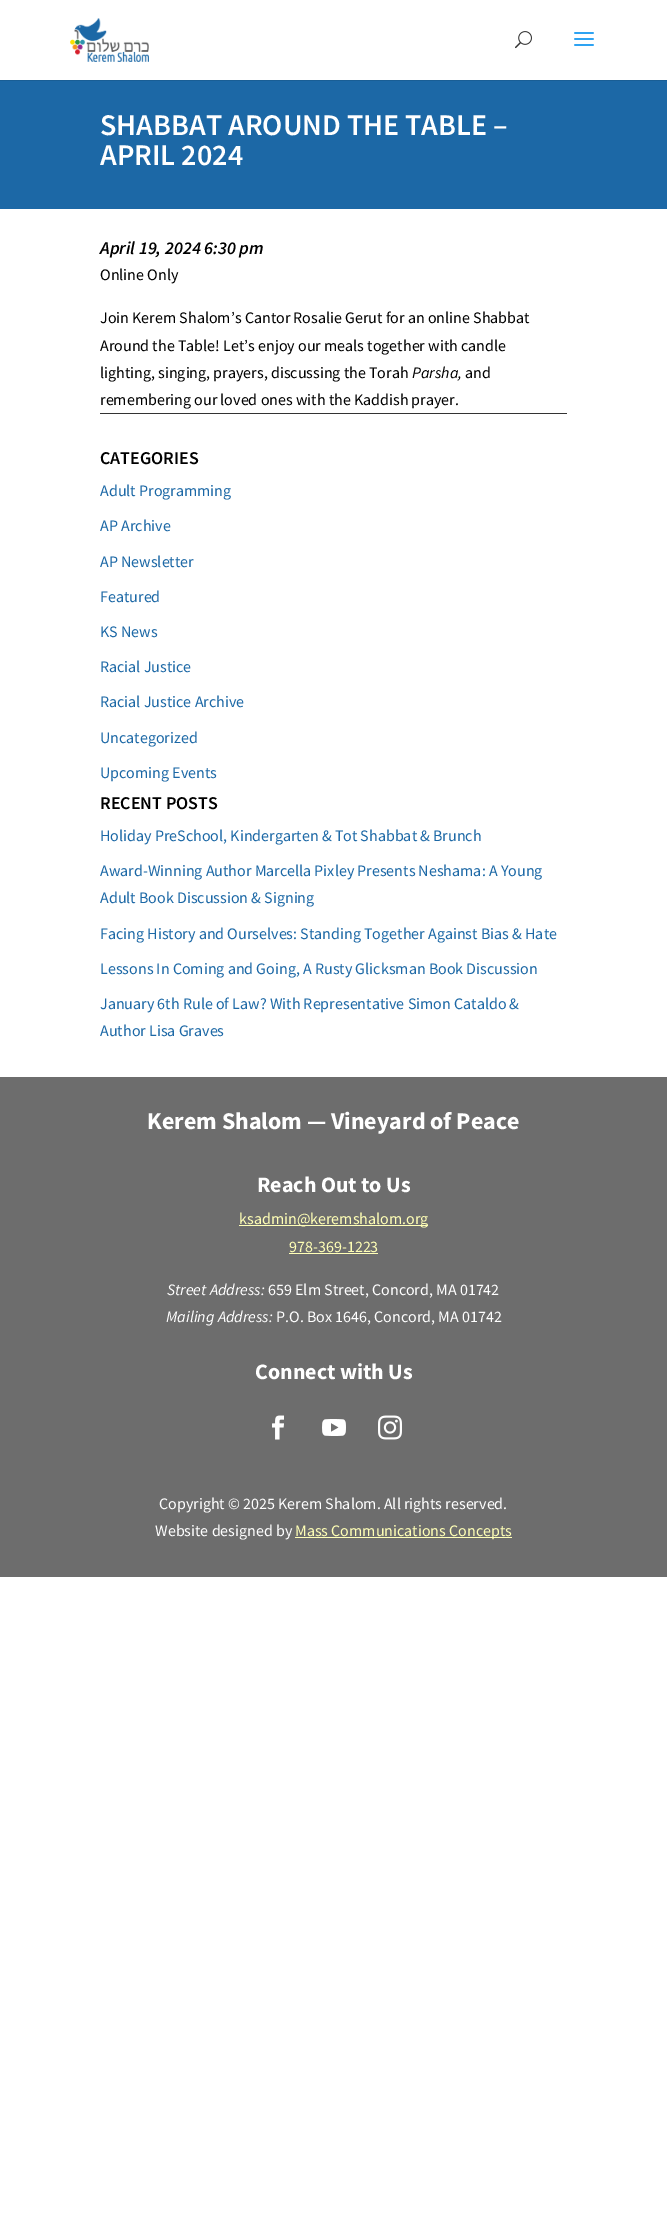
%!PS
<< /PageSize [667 2216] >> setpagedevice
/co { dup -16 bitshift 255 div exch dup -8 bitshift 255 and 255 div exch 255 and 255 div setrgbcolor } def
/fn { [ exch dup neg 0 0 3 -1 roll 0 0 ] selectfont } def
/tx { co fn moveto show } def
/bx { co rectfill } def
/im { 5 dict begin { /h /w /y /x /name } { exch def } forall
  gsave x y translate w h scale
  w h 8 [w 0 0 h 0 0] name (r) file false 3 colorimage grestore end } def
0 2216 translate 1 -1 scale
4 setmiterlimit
0 0 667 2216 16#FFFFFF bx
0 80 667 1 16#195E95 bx
(media/1.raw) 70 18 79 44 im
(media/2.raw) 515 31 17 18 im
(media/3.raw) 574 32 20 14 im
0 81 667 128 16#1C68A6 bx
100 413 467 1 16#333333 bx
0 1077 667 500 16#6D6D6D bx
239 1225 189 1 16#FFFFB6 bx
289 1253 89 1 16#FFFFB6 bx
(media/4.raw) 272 1415 12 25 im
(media/5.raw) 322 1419 24 17 im
(media/6.raw) 378 1415 24 25 im
295 1537 217 1 16#FFFFB6 bx
(SHABBAT AROUND THE TABLE –) 100 135 /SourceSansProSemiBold-SemiBold 30 16#FFFFFF tx
(APRIL 2024) 100 165 /SourceSansProSemiBold-SemiBold 30 16#FFFFFF tx
(April 19, 2024 6:30 pm) 100 254 /SourceSansProSemiBold-SemiBoldItalic 18 16#000000 tx
(Online Only) 100 280 /SourceSansPro-Regular 16 16#000000 tx
(Join Kerem Shalom’s Cantor Rosalie Gerut for an online Shabbat) 100 323 /SourceSansPro-Regular 16 16#000000 tx
(Around the Table! Let’s enjoy our meals together with candle) 100 351 /SourceSansPro-Regular 16 16#000000 tx
(lighting, singing, prayers, discussing the Torah) 100 378 /SourceSansPro-Regular 16 16#000000 tx
(Parsha,) 412 378 /SourceSansPro-Italic 16 16#000000 tx
(and) 465 378 /SourceSansPro-Regular 16 16#000000 tx
(remembering our loved ones with the Kaddish prayer.) 100 405 /SourceSansPro-Regular 16 16#000000 tx
(CATEGORIES) 100 464 /SourceSansProSemiBold-SemiBold 18 16#000000 tx
(Adult Programming) 100 496 /SourceSansPro-Regular 16 16#1C68A6 tx
(AP Archive) 100 531 /SourceSansPro-Regular 16 16#1C68A6 tx
(AP Newsletter) 100 567 /SourceSansPro-Regular 16 16#1C68A6 tx
(Featured) 100 602 /SourceSansPro-Regular 16 16#1C68A6 tx
(KS News) 100 637 /SourceSansPro-Regular 16 16#1C68A6 tx
(Racial Justice) 100 672 /SourceSansPro-Regular 16 16#1C68A6 tx
(Racial Justice Archive) 100 707 /SourceSansPro-Regular 16 16#1C68A6 tx
(Uncategorized) 100 743 /SourceSansPro-Regular 16 16#1C68A6 tx
(Upcoming Events) 100 778 /SourceSansPro-Regular 16 16#1C68A6 tx
(RECENT POSTS) 100 809 /SourceSansProSemiBold-SemiBold 18 16#000000 tx
(Holiday PreSchool, Kindergarten & Tot Shabbat & Brunch) 100 841 /SourceSansPro-Regular 16 16#1C68A6 tx
(Award-Winning Author Marcella Pixley Presents Neshama: A Young) 100 876 /SourceSansPro-Regular 16 16#1C68A6 tx
(Adult Book Discussion & Signing) 100 903 /SourceSansPro-Regular 16 16#1C68A6 tx
(Facing History and Ourselves: Standing Together Against Bias & Hate) 100 939 /SourceSansPro-Regular 16 16#1C68A6 tx
(Lessons In Coming and Going, A Rusty Glicksman Book Discussion) 100 974 /SourceSansPro-Regular 16 16#1C68A6 tx
(January 6th Rule of Law? With Representative Simon Cataldo &) 100 1009 /SourceSansPro-Regular 16 16#1C68A6 tx
(Author Lisa Graves) 100 1036 /SourceSansPro-Regular 16 16#1C68A6 tx
(Kerem Shalom — Vineyard of Peace) 147 1129 /SourceSansPro-Bold 24 16#FFFFFF tx
(Reach Out to Us) 257 1192 /SourceSansPro-Bold 22 16#FFFFFF tx
(ksadmin@keremshalom.org) 239 1224 /SourceSansPro-Regular 16 16#FFFFB6 tx
(978-369-1223) 289 1252 /SourceSansPro-Regular 16 16#FFFFB6 tx
(Street Address:) 167 1295 /SourceSansPro-Italic 16 16#FFFFFF tx
(659 Elm Street, Concord, MA 01742) 268 1295 /SourceSansPro-Regular 16 16#FFFFFF tx
(Mailing Address:) 166 1322 /SourceSansPro-Italic 16 16#FFFFFF tx
(P.O. Box 1646, Concord, MA 01742) 276 1322 /SourceSansPro-Regular 16 16#FFFFFF tx
(Connect with Us) 255 1379 /SourceSansPro-Bold 22 16#FFFFFF tx
(Copyright © 2025 Kerem Shalom. All rights reserved.) 159 1509 /SourceSansPro-Regular 16 16#FFFFFF tx
(Website designed by) 155 1536 /SourceSansPro-Regular 16 16#FFFFFF tx
(Mass Communications Concepts) 295 1536 /SourceSansPro-Regular 16 16#FFFFB6 tx
showpage
